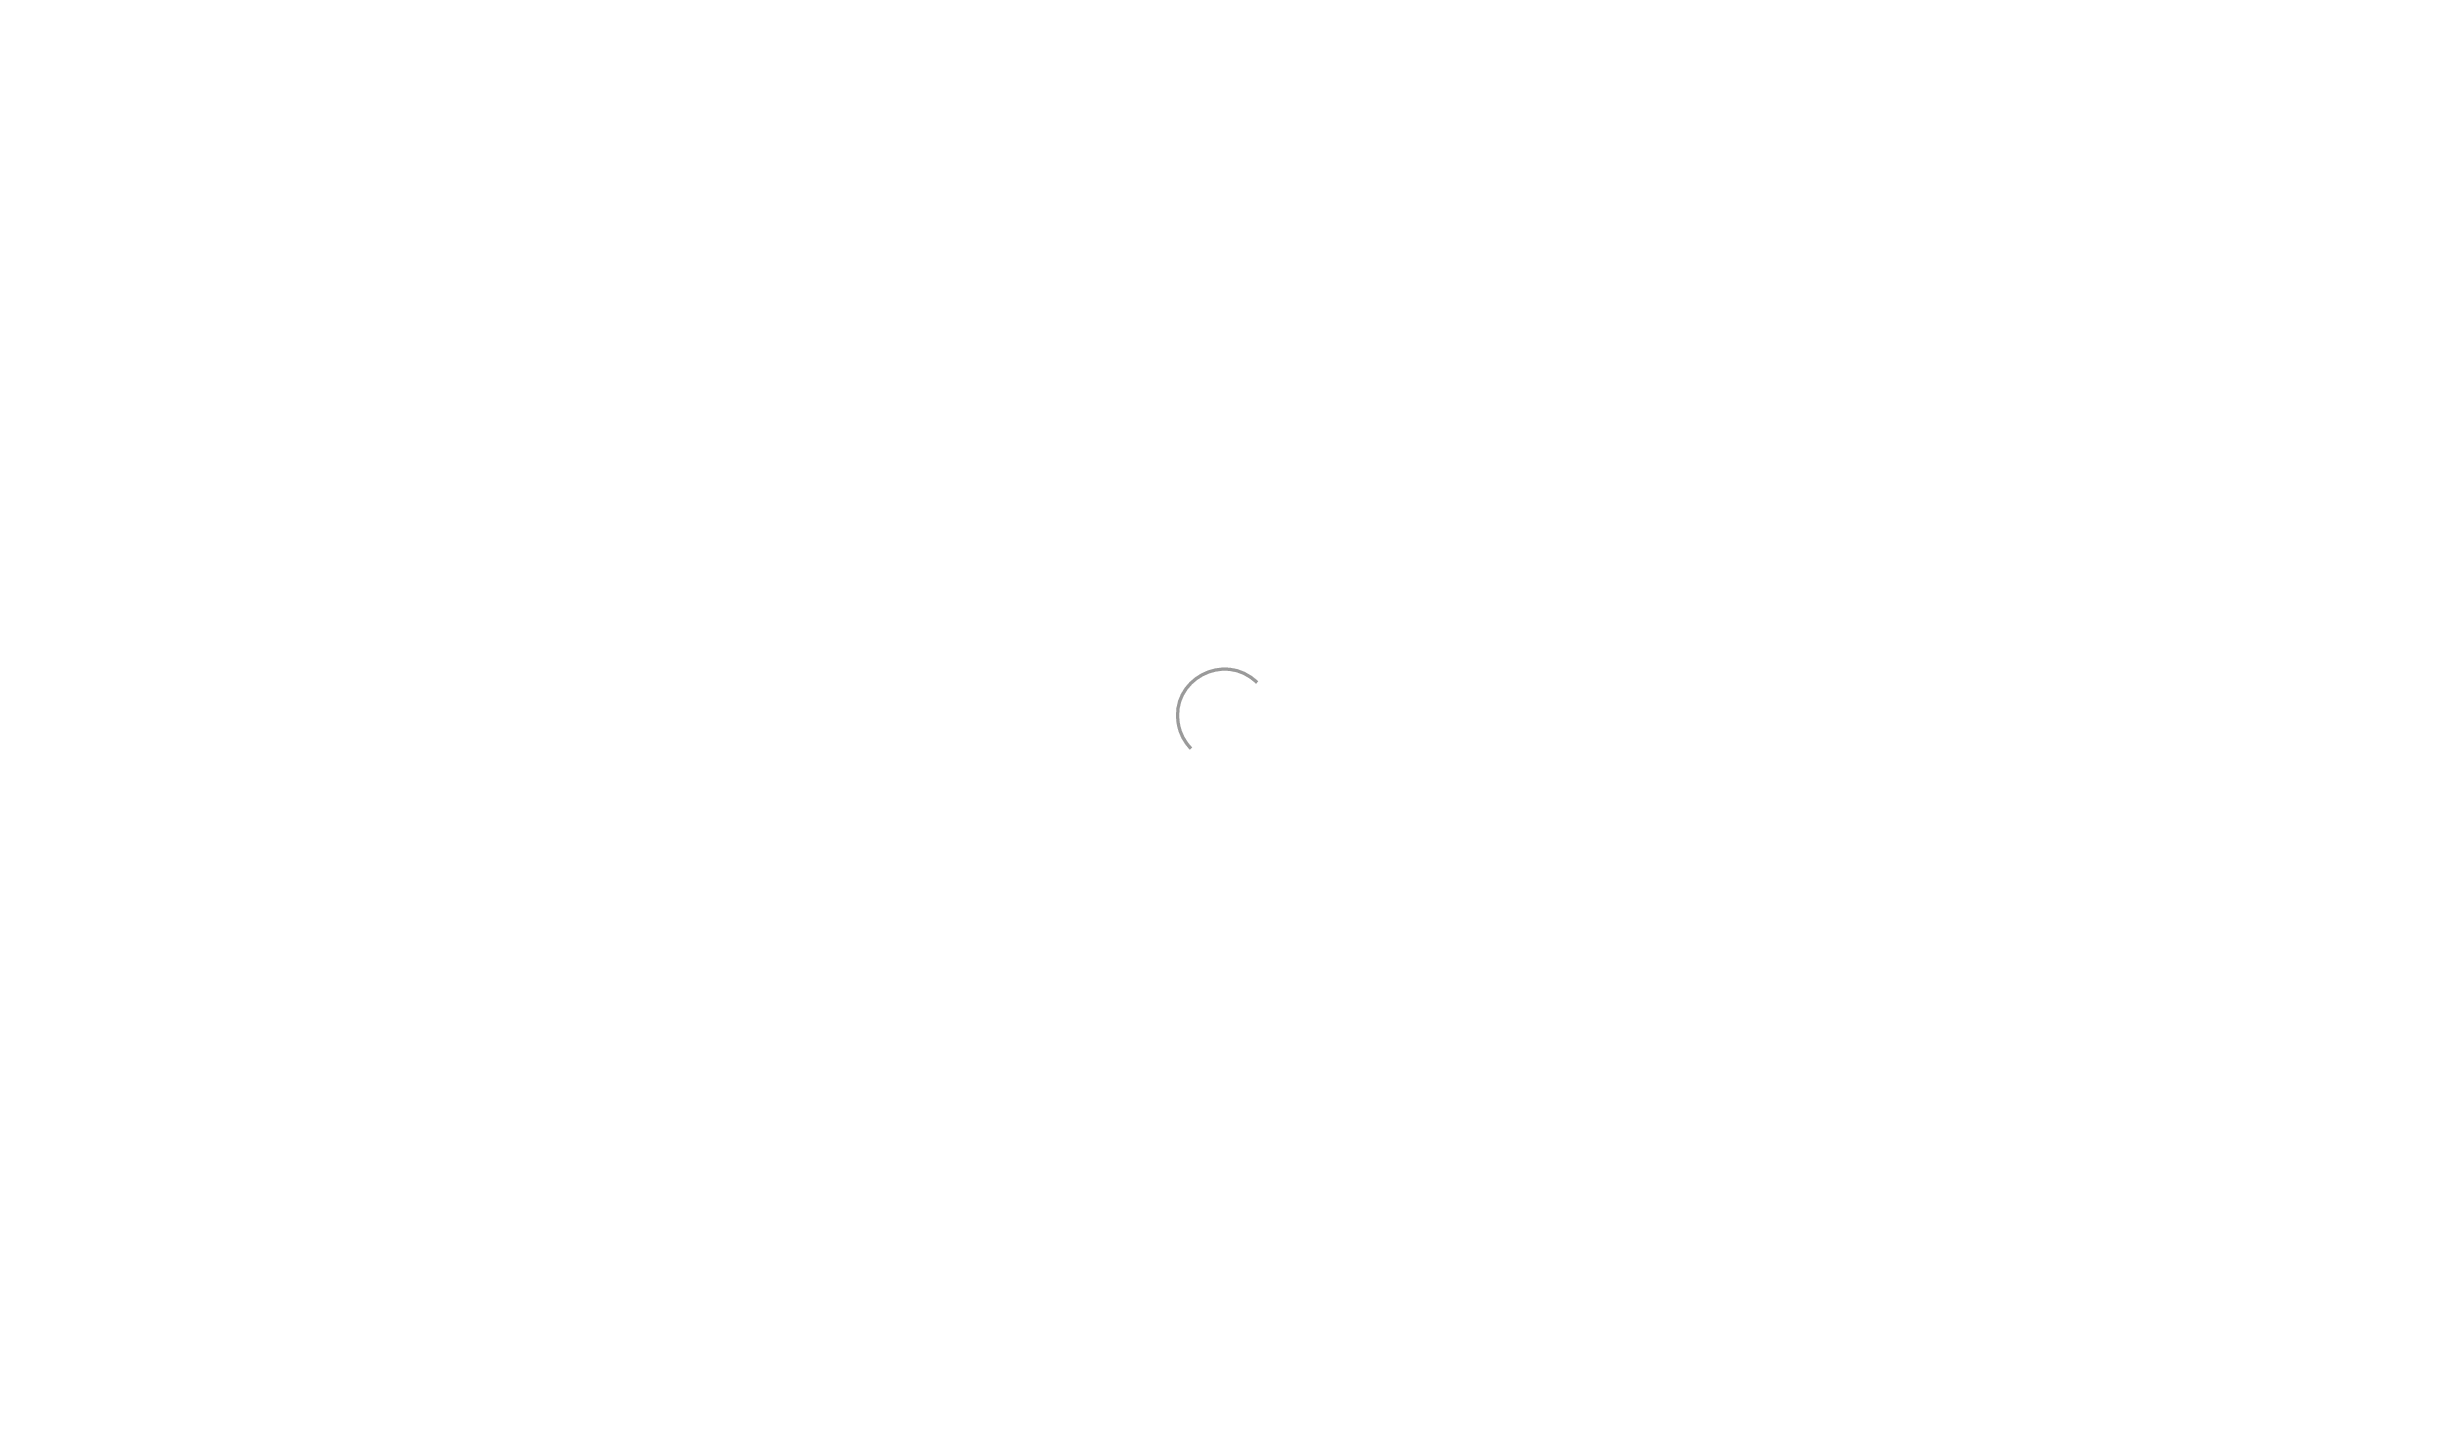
%!PS
<< /PageSize [2442 1455] >> setpagedevice
/mt/moveto load def
/ct/curveto load def
/st/stroke load def
/lw/setlinewidth load def
/co { dup -16 bitshift 255 div exch dup -8 bitshift 255 and 255 div exch 255 and 255 div setrgbcolor } def
/bx { co rectfill } def
0 1455 translate 1 -1 scale
4 setmiterlimit
0 0 2442 1455 16#FFFFFF bx
16#9A9A9A co
3 lw
1191 748.5 mt 1184.5 742 1180 733.5 1178.5 724.5 ct 1169.5 680 1224.5 650.5 1257 682.5 ct st
showpage
